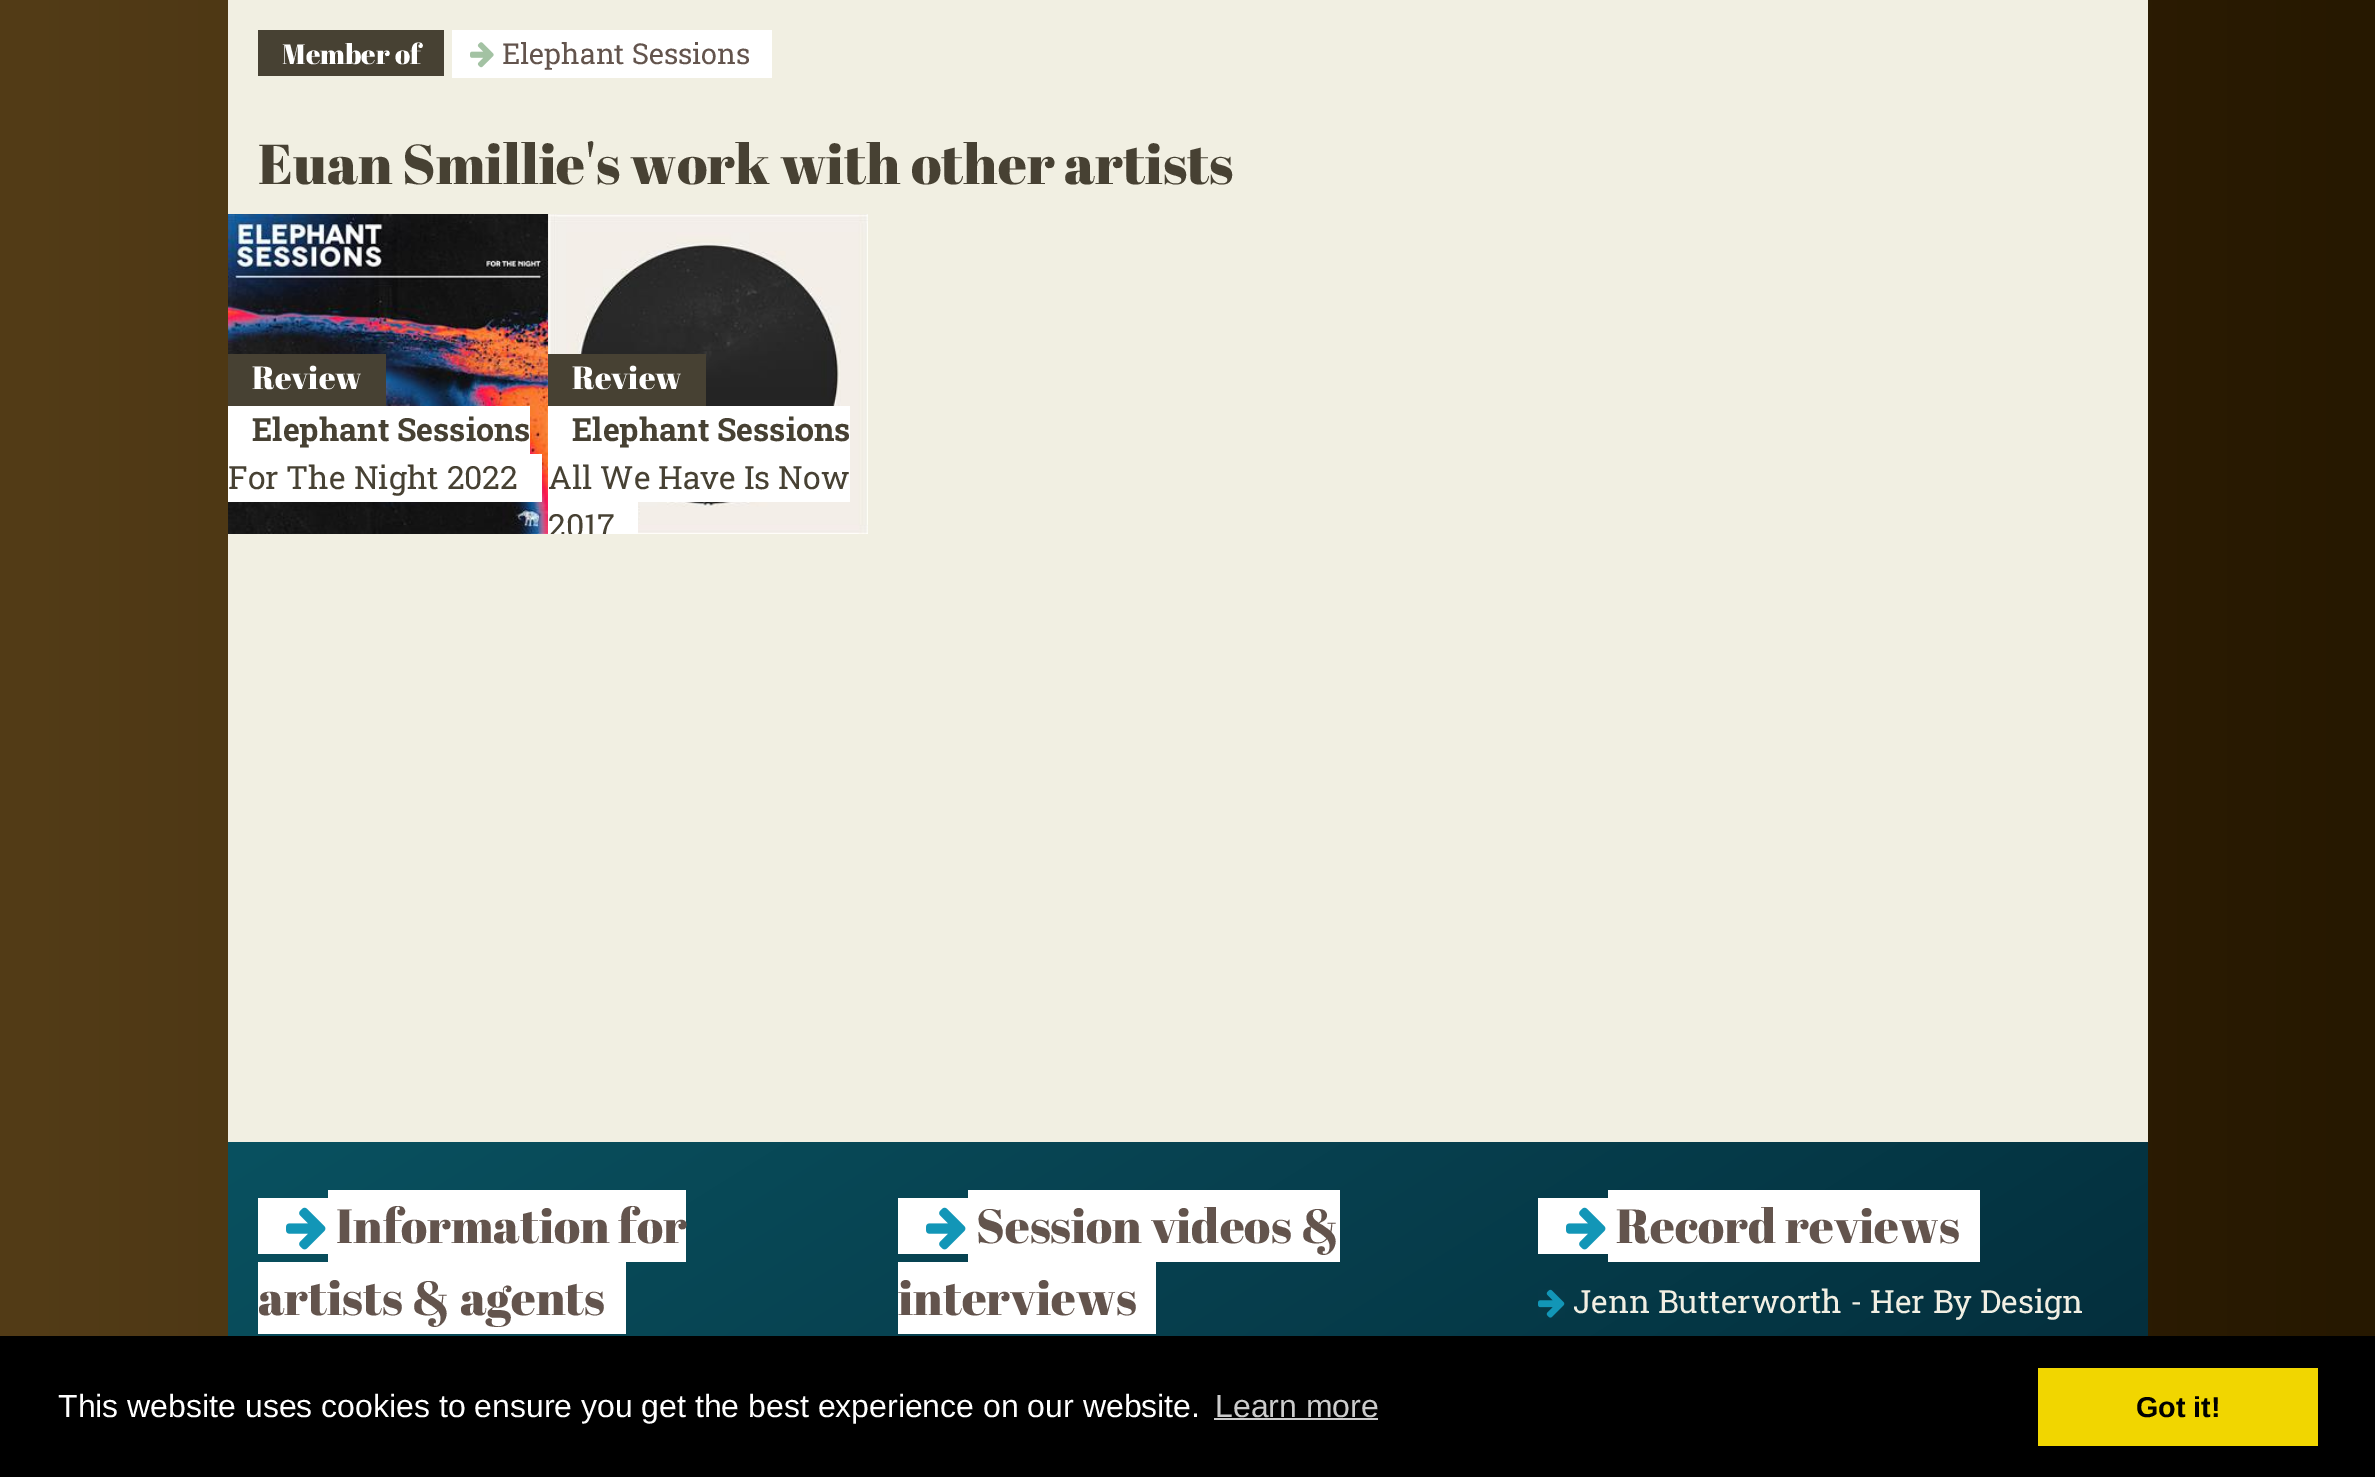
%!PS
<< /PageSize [2375 1477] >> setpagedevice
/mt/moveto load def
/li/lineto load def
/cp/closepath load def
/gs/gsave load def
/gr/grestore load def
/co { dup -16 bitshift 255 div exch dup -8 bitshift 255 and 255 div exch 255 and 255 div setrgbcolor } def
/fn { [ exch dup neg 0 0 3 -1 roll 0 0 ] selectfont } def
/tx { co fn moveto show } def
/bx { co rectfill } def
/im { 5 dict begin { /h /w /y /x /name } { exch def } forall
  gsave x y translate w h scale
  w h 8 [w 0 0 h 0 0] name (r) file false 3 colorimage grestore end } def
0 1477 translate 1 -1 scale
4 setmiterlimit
0 0 2375 1477 16#FFFFFF bx
gs 0 0 mt 2375 0 li 2375 1336 li 0 1336 li cp clip newpath
<< /ShadingType 2 /ColorSpace /DeviceRGB /Coords [0 991 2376 991] /Extend [true true] /Function << /FunctionType 2 /Domain [0 1] /C0 [.325 .235 .09] /C1 [.149 .094 0] /N 1 >> >> shfill gr
228 0 1920 1142 16#F1EFE2 bx
258 30 186 46 16#474133 bx
452 30 320 48 16#FFFFFF bx
(media/1.raw) 470 42 24 26 im
(media/2.raw) 228 214 320 320 im
228 354 158 52 16#474133 bx
228 406 302 48 16#FFFFFF bx
228 454 314 48 16#FFFFFF bx
(media/3.raw) 548 214 320 320 im
548 354 158 52 16#474133 bx
548 406 302 96 16#FFFFFF bx
548 502 90 32 16#FFFFFF bx
gs 228 1142 mt 2148 1142 li 2148 1336 li 228 1336 li cp clip newpath
<< /ShadingType 2 /ColorSpace /DeviceRGB /Coords [662 871 1714 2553] /Extend [true true] /Function << /FunctionType 2 /Domain [0 1] /C0 [.035 .318 .376] /C1 [.004 .094 .149] /N 1 >> >> shfill gr
258 1198 70 56 16#FFFFFF bx
328 1190 358 72 16#FFFFFF bx
258 1262 368 72 16#FFFFFF bx
(media/4.raw) 286 1207 40 43 im
898 1198 70 56 16#FFFFFF bx
968 1190 372 72 16#FFFFFF bx
898 1262 258 72 16#FFFFFF bx
(media/4.raw) 926 1207 40 43 im
1538 1198 70 56 16#FFFFFF bx
1608 1190 372 72 16#FFFFFF bx
(media/4.raw) 1566 1207 40 43 im
(media/5.raw) 1538 1289 27 29 im
0 1336 2375 141 16#000000 bx
1214 1418 164 2 16#CCCCCC bx
2038 1368 280 78 16#F1D600 bx
(Member of) 282 64 /AbrilFatface-Regular 28 16#FFFFFF tx
(Elephant Sessions) 502 64 /RobotoSlab-Regular 28.75 16#63544D tx
(Euan Smillie's work with other artists) 258 184 /AbrilFatface-Regular 56 16#474133 tx
(Review) 252 389 /AbrilFatface-Regular 32 16#FFFFFF tx
(Elephant Sessions) 252 441 /RobotoSlab-Bold 32 16#474133 tx
(For The Night 2022) 228 489 /RobotoSlab-Regular 32 16#474133 tx
(Review) 572 389 /AbrilFatface-Regular 32 16#FFFFFF tx
(Elephant Sessions) 572 441 /RobotoSlab-Bold 32 16#474133 tx
(All We Have Is Now) 548 489 /RobotoSlab-Regular 32 16#474133 tx
gs
548 214 320 320 rectclip
(2017) 548 537 /RobotoSlab-Regular 32 16#474133 tx
gr
(Information for) 336 1243 /AbrilFatface-Regular 48 16#63544D tx
(artists & agents) 258 1315 /AbrilFatface-Regular 48 16#63544D tx
(Session videos &) 976 1243 /AbrilFatface-Regular 48 16#63544D tx
(interviews) 898 1315 /AbrilFatface-Regular 48 16#63544D tx
(Record reviews) 1616 1243 /AbrilFatface-Regular 48 16#63544D tx
(Jenn Butterworth - Her By Design) 1573 1313 /RobotoSlab-Regular 32 16#F1EFE3 tx
(This website uses cookies to ensure you get the best experience on our website.) 58 1417 /LiberationSans-Regular 32 16#FFFFFF tx
(Learn more) 1215 1417 /LiberationSans-Regular 32 16#CCCCCC tx
(Got it!) 2136 1417 /LiberationSans-Bold 28.75 16#000000 tx
showpage
